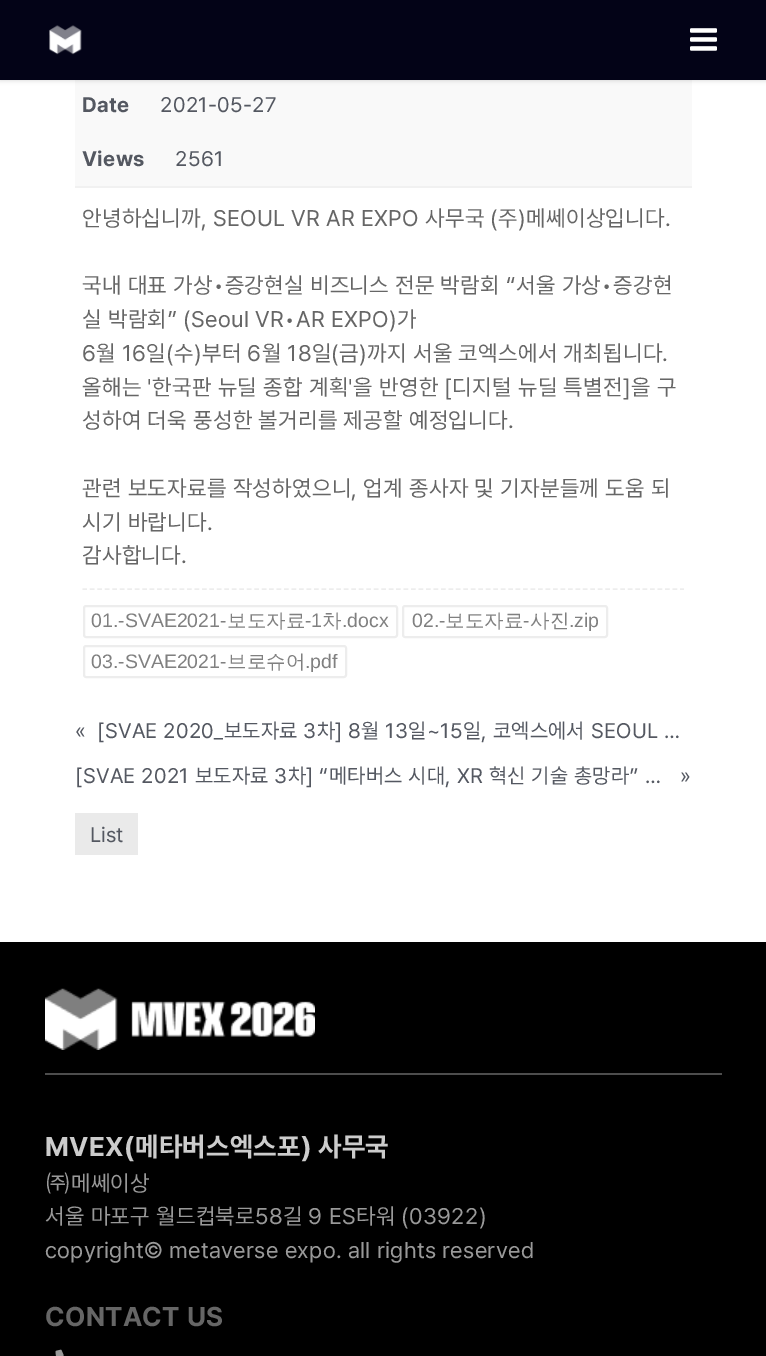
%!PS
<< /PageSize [766 1356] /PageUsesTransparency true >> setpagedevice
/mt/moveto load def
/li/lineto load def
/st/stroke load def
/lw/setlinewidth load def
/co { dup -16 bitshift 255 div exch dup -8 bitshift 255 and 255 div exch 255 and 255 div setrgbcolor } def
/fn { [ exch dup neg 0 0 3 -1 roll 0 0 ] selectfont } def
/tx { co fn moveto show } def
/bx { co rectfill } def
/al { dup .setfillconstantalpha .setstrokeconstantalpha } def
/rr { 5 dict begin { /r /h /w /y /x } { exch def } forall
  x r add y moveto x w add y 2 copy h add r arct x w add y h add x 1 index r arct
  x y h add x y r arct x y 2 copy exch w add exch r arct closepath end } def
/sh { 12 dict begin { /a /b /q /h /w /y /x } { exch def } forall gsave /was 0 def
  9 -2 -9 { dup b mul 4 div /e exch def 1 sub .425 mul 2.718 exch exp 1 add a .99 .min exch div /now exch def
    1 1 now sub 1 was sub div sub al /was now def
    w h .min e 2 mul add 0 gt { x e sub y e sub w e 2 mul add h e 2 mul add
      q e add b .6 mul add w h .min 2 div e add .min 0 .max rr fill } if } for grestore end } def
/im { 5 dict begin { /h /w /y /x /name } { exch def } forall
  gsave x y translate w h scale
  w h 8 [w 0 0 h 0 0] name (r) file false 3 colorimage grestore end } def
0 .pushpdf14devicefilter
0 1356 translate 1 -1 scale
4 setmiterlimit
0 0 766 1356 16#FFFFFF bx
75 80 617 106 16#F9F9F9 bx
16#000000 co
0 2 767 79 0 2 .12 sh
0 0 766 80 16#030317 bx
(media/1.raw) 49 25 33 30 im
(media/2.raw) 690 28 27 23 im
75 186 617 2 16#F1F1F1 bx
16#EDEDED co
1.5 lw
[4.5 2.97] 0 setdash
82.5 589 mt 684 589 li st
2 lw
[] 0 setdash
84 606 313 31 2 rr st
403 606 204 31 2 rr st
84 646 262 31 2 rr st
75 813 63 42 16#EAEAEA bx
0 942 766 414 16#000000 bx
45 1073 677 2 16#4D4D4D bx
(media/3.raw) 45 988 270 62 im
(media/4.raw) 55 1349 9 7 im
/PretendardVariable-Bold 21 fn
16#545861 co
82 112 mt .35 0 (Date) ashow
/PretendardVariable-Regular 21 fn
160 112 mt .35 0 (2021-05-27) ashow
/PretendardVariable-Bold 21 fn
82 166 mt .35 0 (Views) ashow
/PretendardVariable-Regular 21 fn
175 166 mt .35 0 (2561) ashow
/PretendardVariable-Regular 22.5 fn
16#666666 co
82 226 mt .35 0 (안녕하십니까, SEOUL VR AR EXPO 사무국 \(주\)메쎄이상입니다.) ashow
82 293 mt .35 0 (국내 대표 가상•증강현실 비즈니스 전문 박람회 “서울 가상•증강현) ashow
82 327 mt .35 0 (실 박람회” \(Seoul VR•AR EXPO\)가) ashow
82 361 mt .35 0 (6월 16일\(수\)부터 6월 18일\(금\)까지 서울 코엑스에서 개최됩니다.) ashow
82 395 mt .35 0 (올해는 '한국판 뉴딜 종합 계획'을 반영한 [디지털 뉴딜 특별전]을 구) ashow
82 428 mt .35 0 (성하여 더욱 풍성한 볼거리를 제공할 예정입니다.) ashow
82 496 mt .35 0 (관련 보도자료를 작성하였으니, 업계 종사자 및 기자분들께 도움 되) ashow
82 530 mt .35 0 (시기 바랍니다.) ashow
82 563 mt .35 0 (감사합니다.) ashow
(01.-SVAE2021-) 91 627 /LiberationSans-Regular 19.5 16#808080 tx
(보도자료) 227 627 /WenQuanYiZenHei-Medium 19.5 16#808080 tx
(-1) 305 627 /LiberationSans-Regular 19.5 16#808080 tx
(차) 322 627 /WenQuanYiZenHei-Medium 19.5 16#808080 tx
(.docx) 342 627 /LiberationSans-Regular 19.5 16#808080 tx
(02.-) 412 627 /LiberationSans-Regular 19.5 16#808080 tx
(보도자료) 445 627 /WenQuanYiZenHei-Medium 19.5 16#808080 tx
(-) 523 627 /LiberationSans-Regular 19.5 16#808080 tx
(사진) 530 627 /WenQuanYiZenHei-Medium 19.5 16#808080 tx
(.zip) 569 627 /LiberationSans-Regular 19.5 16#808080 tx
(03.-SVAE2021-) 91 668 /LiberationSans-Regular 19.5 16#808080 tx
(브로슈어) 227 668 /WenQuanYiZenHei-Medium 19.5 16#808080 tx
(.pdf) 305 668 /LiberationSans-Regular 19.5 16#808080 tx
/PretendardVariable-Regular 21 fn
16#545861 co
75 738 mt .35 0 («) ashow
97 738 mt .35 0 ([SVAE 2020_보도자료 3차] 8월 13일~15일, 코엑스에서 SEOUL …) ashow
75 783 mt .35 0 ([SVAE 2021 보도자료 3차] “메타버스 시대, XR 혁신 기술 총망라” …) ashow
680 783 mt .35 0 (») ashow
(List) 90 842 /PretendardVariable-Regular 21 16#545861 tx
/PretendardVariable-Bold 27 fn
16#CCCCCC co
45 1156 mt .35 0 (MVEX\(메타버스엑스포\) 사무국) ashow
/PretendardVariable-Regular 22.5 fn
16#999999 co
45 1191 mt .35 0 (㈜메쎄이상) ashow
45 1224 mt .35 0 (서울 마포구 월드컵북로58길 9 ES타워 \(03922\)) ashow
45 1258 mt .35 0 (copyright© metaverse expo. all rights reserved) ashow
/PretendardVariable-Bold 27 fn
16#666666 co
45 1326 mt .35 0 (CONTACT US) ashow
.poppdf14devicefilter showpage
